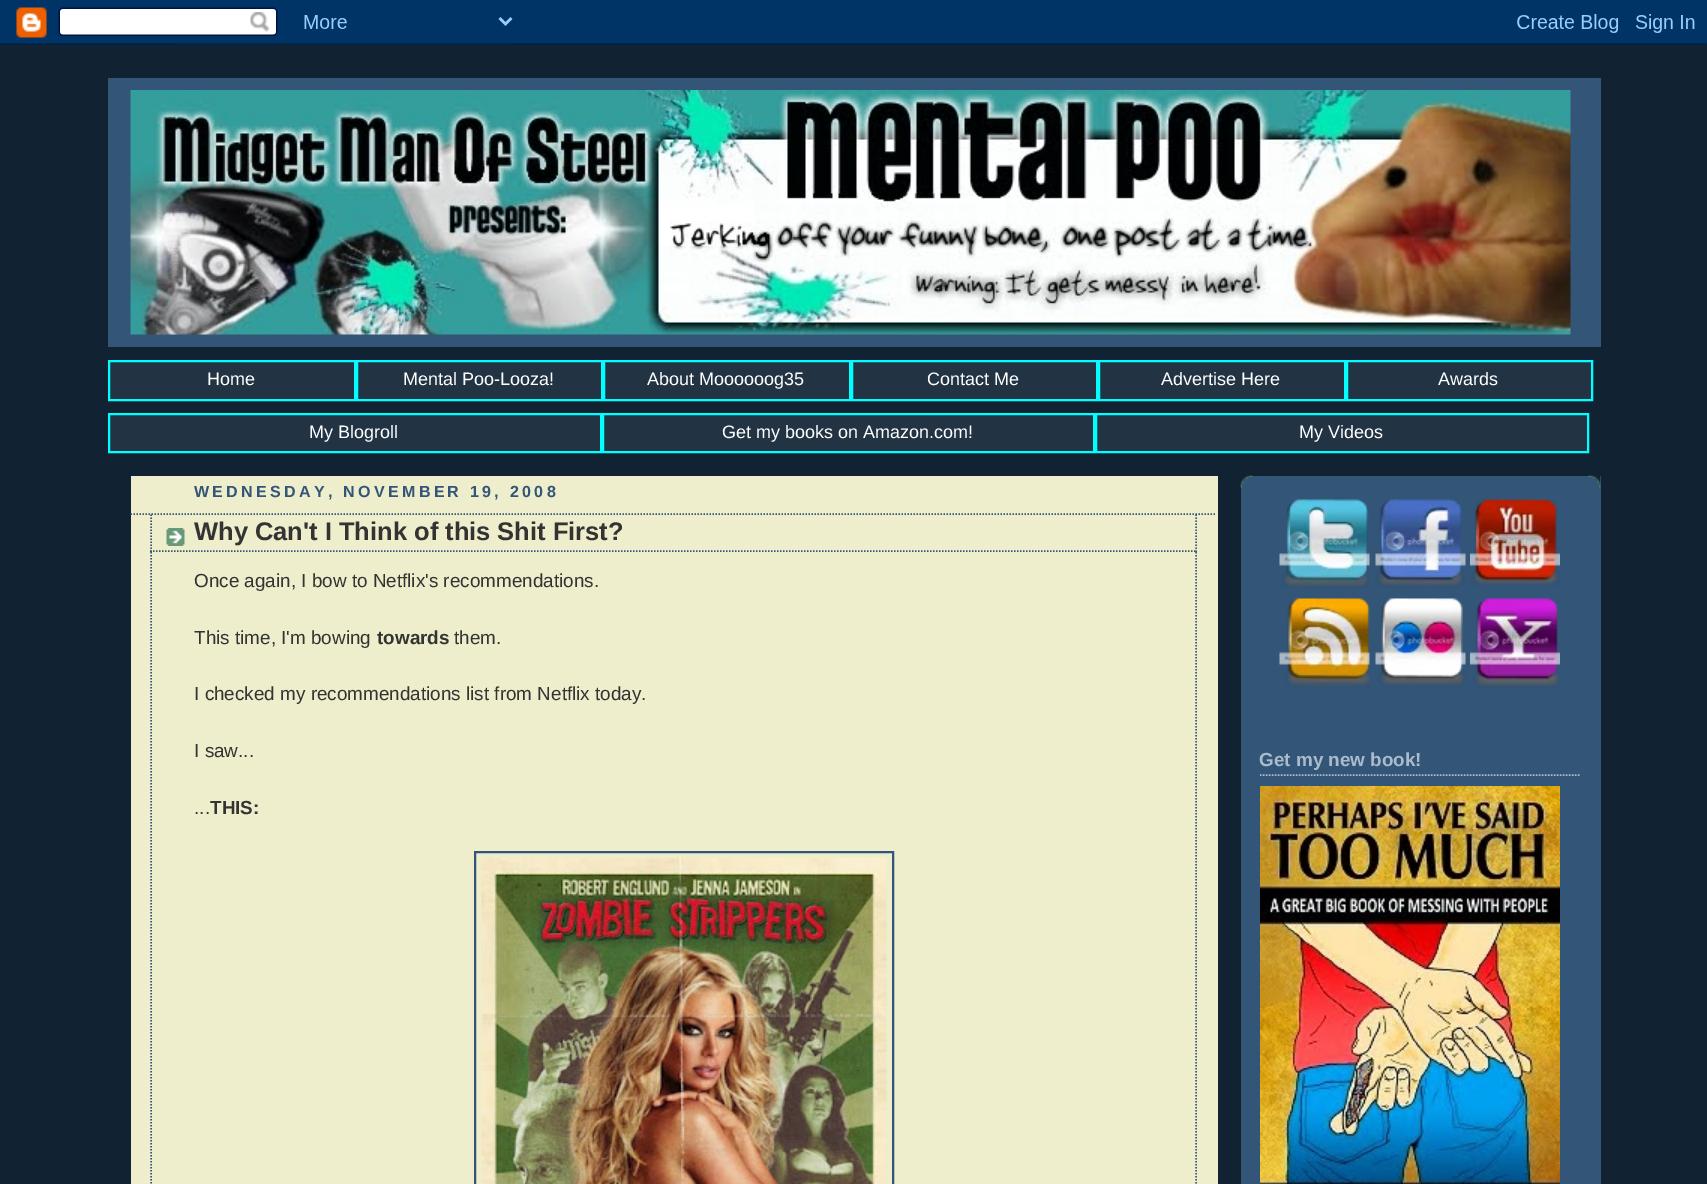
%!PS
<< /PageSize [1707 1184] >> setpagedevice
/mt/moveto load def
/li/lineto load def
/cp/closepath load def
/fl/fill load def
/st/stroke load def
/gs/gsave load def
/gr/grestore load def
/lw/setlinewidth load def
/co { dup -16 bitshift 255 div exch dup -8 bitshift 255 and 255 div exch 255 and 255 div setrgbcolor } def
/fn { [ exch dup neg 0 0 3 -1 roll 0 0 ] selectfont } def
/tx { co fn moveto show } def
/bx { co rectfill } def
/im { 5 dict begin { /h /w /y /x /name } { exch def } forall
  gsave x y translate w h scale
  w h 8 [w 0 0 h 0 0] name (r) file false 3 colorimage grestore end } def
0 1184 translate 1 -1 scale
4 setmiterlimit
0 0 1707 1184 16#112233 bx
(media/1.raw) 0 0 1707 45 im
108 78 1493 269 16#335577 bx
(media/2.raw) 130 90 1441 245 im
16#223344 co
109 361 mt 355 361 li 355 400 li 109 400 li cp gs fl gr
16#00FFFF co
2 lw
st
16#223344 co
357 361 mt 602 361 li 602 400 li 357 400 li cp gs fl gr
16#00FFFF co
st
16#223344 co
604 361 mt 850 361 li 850 400 li 604 400 li cp gs fl gr
16#00FFFF co
st
16#223344 co
852 361 mt 1097 361 li 1097 400 li 852 400 li cp gs fl gr
16#00FFFF co
st
16#223344 co
1099 361 mt 1345 361 li 1345 400 li 1099 400 li cp gs fl gr
16#00FFFF co
st
16#223344 co
1347 361 mt 1592 361 li 1592 400 li 1347 400 li cp gs fl gr
16#00FFFF co
st
16#223344 co
109 414 mt 601 414 li 601 452 li 109 452 li cp gs fl gr
16#00FFFF co
st
16#223344 co
603 414 mt 1094 414 li 1094 452 li 603 452 li cp gs fl gr
16#00FFFF co
st
16#223344 co
1096 414 mt 1588 414 li 1588 452 li 1096 452 li cp gs fl gr
16#00FFFF co
st
131 476 1087 708 16#EEEECC bx
16#335577 co
1.5 lw
[1.5 1.5] 0 setdash
130.5 514 mt 1216.5 514 li st
(media/3.raw) 166 528 19 18 im
1196 514.5 mt 1196 552 li st
150 551 mt 1197 551 li st
151 514.5 mt 151 552 li st
1196 552 mt 1196 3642 li st
151 552 mt 151 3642 li st
2 lw
[] 0 setdash
475 852 418 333 rectstroke
(media/4.raw) 481 858 406 326 im
1241 476 360 708 16#335577 bx
(media/5.raw) 1240 475 361 13 im
(media/6.raw) 1279 499 91 89 im
(media/7.raw) 1375 499 91 89 im
(media/8.raw) 1470 499 90 87 im
(media/9.raw) 1279 598 91 89 im
(media/10.raw) 1375 598 91 89 im
(media/11.raw) 1470 598 90 90 im
16#AABBCC co
1.5 lw
[1.5 1.5] 0 setdash
1260 775 mt 1581 775 li st
(media/12.raw) 1260 786 300 398 im
(Home) 207 385 /LiberationSans-Regular 18 16#FFFFFF tx
(Mental Poo-Looza!) 403 385 /LiberationSans-Regular 18 16#FFFFFF tx
(About Moooooog35) 647 385 /LiberationSans-Regular 18 16#FFFFFF tx
(Contact Me) 927 385 /LiberationSans-Regular 18 16#FFFFFF tx
(Advertise Here) 1161 385 /LiberationSans-Regular 18 16#FFFFFF tx
(Awards) 1438 385 /LiberationSans-Regular 18 16#FFFFFF tx
(My Blogroll) 309 438 /LiberationSans-Regular 18 16#FFFFFF tx
(Get my books on Amazon.com!) 722 438 /LiberationSans-Regular 18 16#FFFFFF tx
(My Videos) 1299 438 /LiberationSans-Regular 18 16#FFFFFF tx
/LiberationSans-Bold 16.1 fn
16#335577 co
194 497 mt 3.25 0 (WEDNESDAY, NOVEMBER 19, 2008) ashow
(Why Can't I Think of this Shit First?) 194 540 /LiberationSans-Bold 25.5 16#333333 tx
(Once again, I bow to Netflix's recommendations.) 194 587 /LiberationSans-Regular 18.9 16#333333 tx
(This time, I'm bowing) 194 644 /LiberationSans-Regular 18.9 16#333333 tx
(towards) 377 644 /LiberationSans-Bold 18.9 16#333333 tx
(them.) 454 644 /LiberationSans-Regular 18.9 16#333333 tx
(I checked my recommendations list from Netflix today.) 194 700 /LiberationSans-Regular 18.9 16#333333 tx
(I saw...) 194 757 /LiberationSans-Regular 18.9 16#333333 tx
(...) 194 814 /LiberationSans-Regular 18.9 16#333333 tx
(THIS:) 210 814 /LiberationSans-Bold 18.9 16#333333 tx
(Get my new book!) 1259 766 /LiberationSans-Bold 18.9 16#AABBCC tx
showpage
